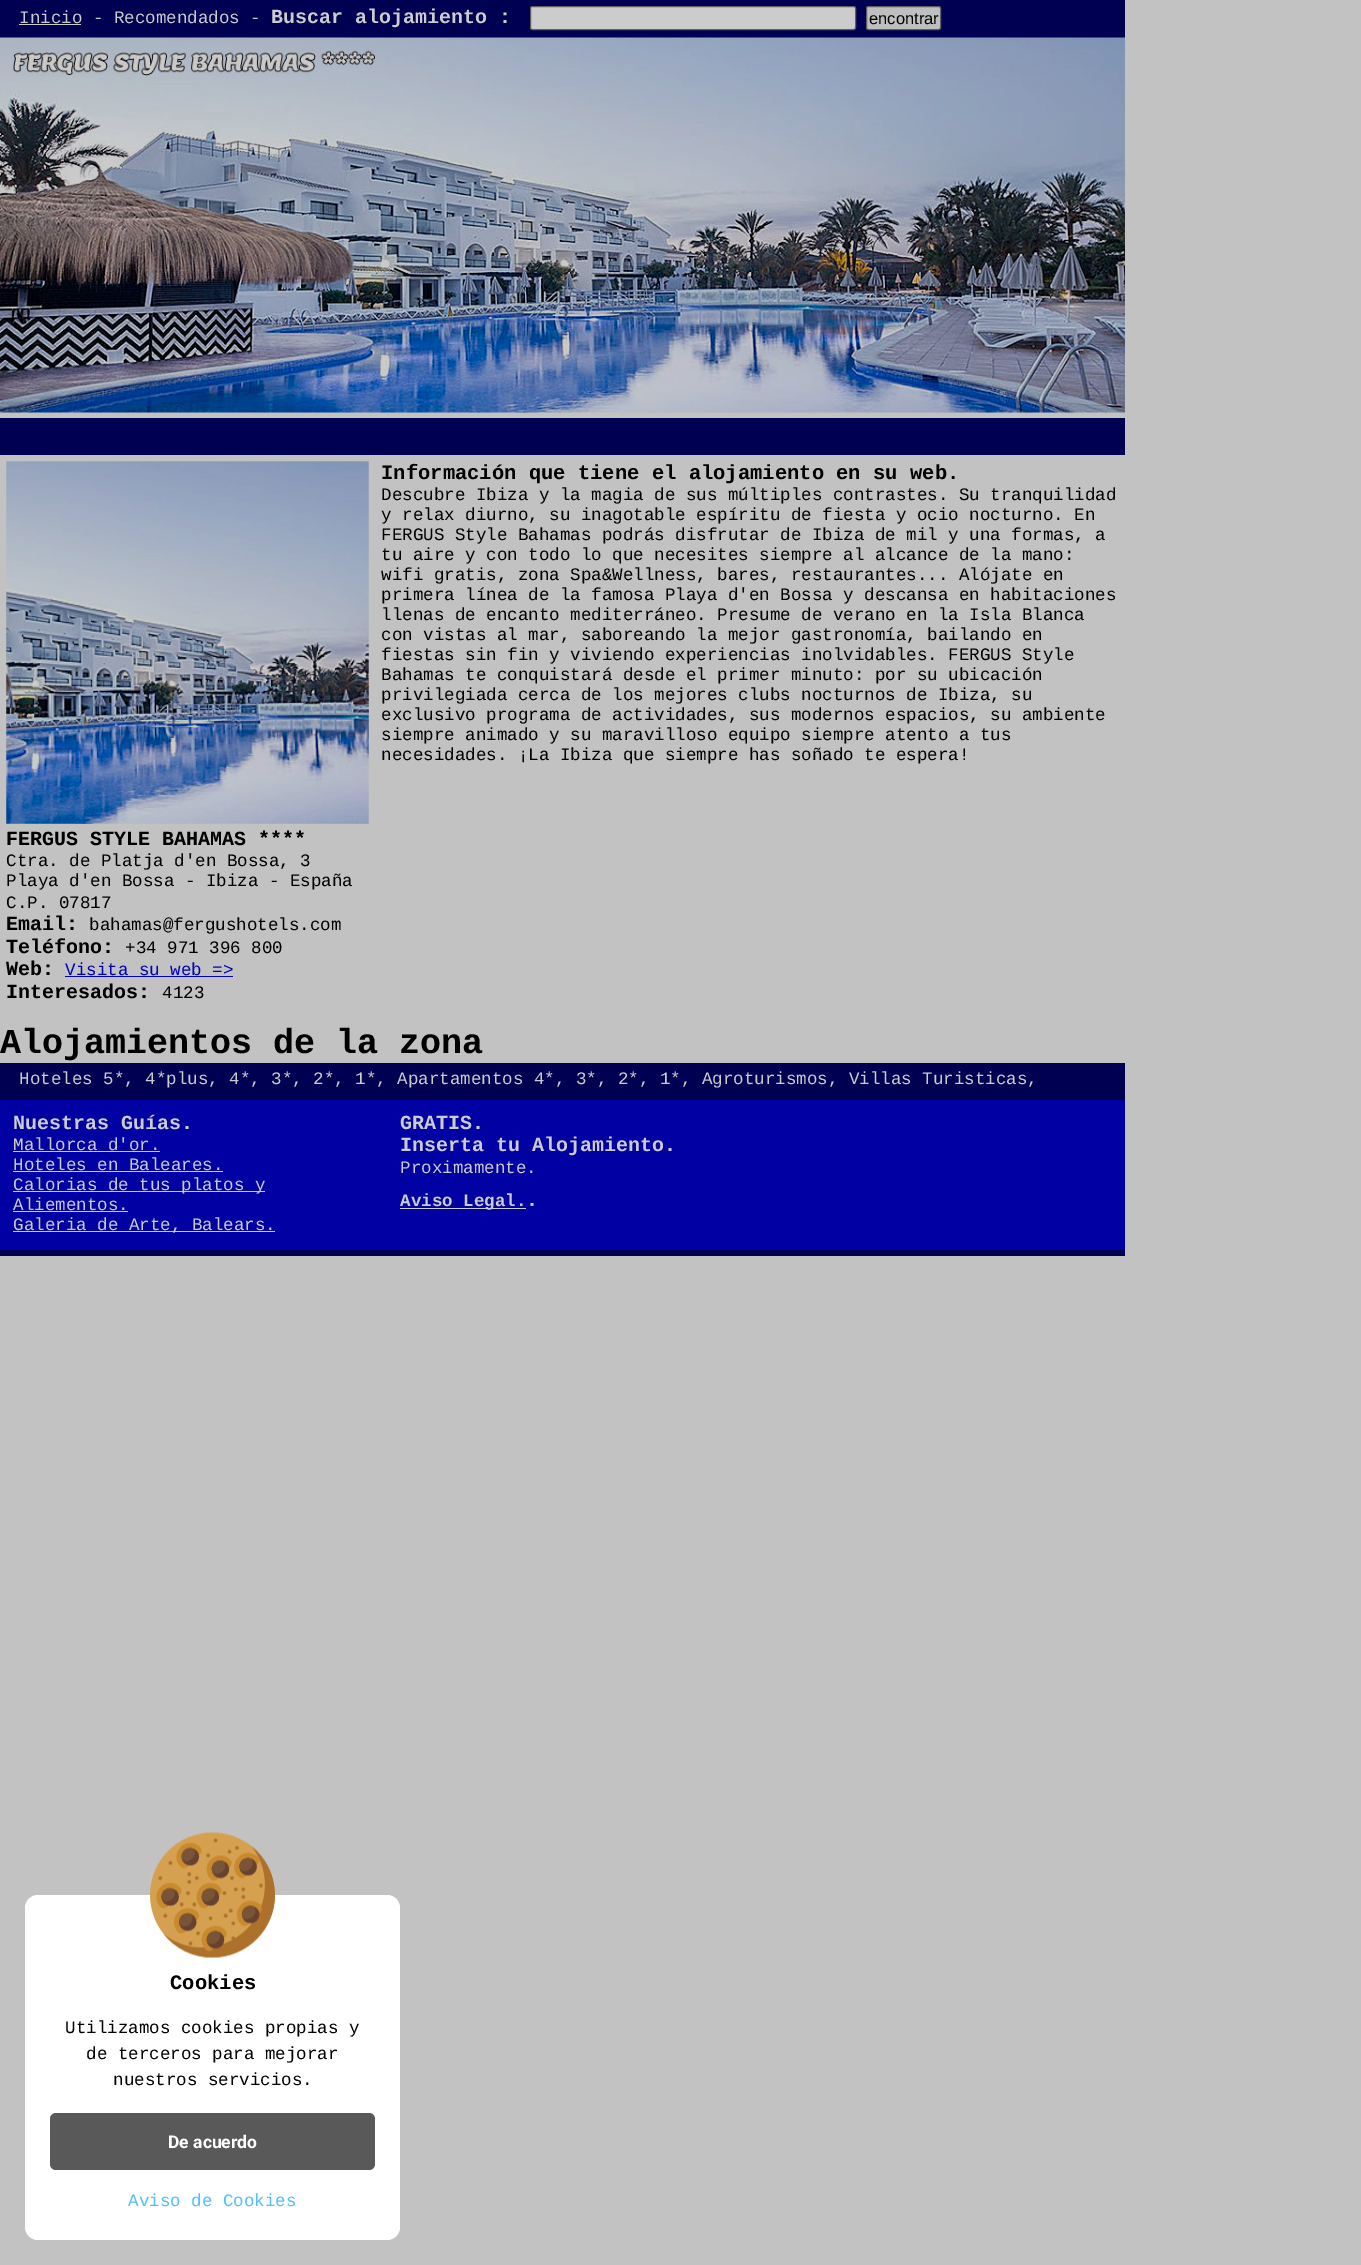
%!PS
<< /PageSize [1361 2265] >> setpagedevice
/fl/fill load def
/st/stroke load def
/gs/gsave load def
/gr/grestore load def
/co { dup -16 bitshift 255 div exch dup -8 bitshift 255 and 255 div exch 255 and 255 div setrgbcolor } def
/fn { [ exch dup neg 0 0 3 -1 roll 0 0 ] selectfont } def
/tx { co fn moveto show } def
/bx { co rectfill } def
/rr { 5 dict begin { /r /h /w /y /x } { exch def } forall
  x r add y moveto x w add y 2 copy h add r arct x w add y h add x 1 index r arct
  x y h add x y r arct x y 2 copy exch w add exch r arct closepath end } def
/im { 5 dict begin { /h /w /y /x /name } { exch def } forall
  gsave x y translate w h scale
  w h 8 [w 0 0 h 0 0] name (r) file false 3 colorimage grestore end } def
0 2265 translate 1 -1 scale
4 setmiterlimit
0 0 1361 2265 16#C2C2C2 bx
0 0 1125 38 16#000052 bx
19 24 62 1 16#CCCCCC bx
530.5 6.5 325 23 2 rr gs fl gr
16#5E5E5E co
st
16#BFBFBF co
866.5 6.5 74 23 2 rr gs fl gr
16#5E5E5E co
st
(media/1.raw) 0 37 1125 376 im
0 418 1125 37 16#000052 bx
(media/2.raw) 6 461 363 363 im
65 976 168 1 16#0000BE bx
0 1063 1125 37 16#000052 bx
0 1100 1125 150 16#0000A3 bx
13 1151 147 1 16#CCCCCC bx
13 1171 210 1 16#CCCCCC bx
13 1191 252 1 16#CCCCCC bx
13 1211 115 1 16#CCCCCC bx
13 1231 262 1 16#CCCCCC bx
400 1208 126 1 16#CCCCCC bx
0 1250 1125 6 16#000052 bx
16#FFFFFF co
25 1895 375 345 13 rr fl
(media/3.raw) 150 1832 125 126 im
16#595959 co
50 2113 325 57 6 rr fl
(Inicio - Recomendados -) 19 23 /LiberationMono-Regular 17.5 16#CCCCCC tx
(Buscar alojamiento :) 271 23 /LiberationMono-Bold 20 16#CCCCCC tx
(encontrar) 869 24 /LiberationSans-Regular 16.5 16#000000 tx
(Información que tiene el alojamiento en su web.) 381 479 /LiberationMono-Bold 20.5 16#000000 tx
(Descubre Ibiza y la magia de sus múltiples contrastes. Su tranquilidad) 381 500 /LiberationMono-Regular 17.5 16#000000 tx
(y relax diurno, su inagotable espíritu de fiesta y ocio nocturno. En) 381 520 /LiberationMono-Regular 17.5 16#000000 tx
(FERGUS Style Bahamas podrás disfrutar de Ibiza de mil y una formas, a) 381 540 /LiberationMono-Regular 17.5 16#000000 tx
(tu aire y con todo lo que necesites siempre al alcance de la mano:) 381 560 /LiberationMono-Regular 17.5 16#000000 tx
(wifi gratis, zona Spa&Wellness, bares, restaurantes... Alójate en) 381 580 /LiberationMono-Regular 17.5 16#000000 tx
(primera línea de la famosa Playa d'en Bossa y descansa en habitaciones) 381 600 /LiberationMono-Regular 17.5 16#000000 tx
(llenas de encanto mediterráneo. Presume de verano en la Isla Blanca) 381 620 /LiberationMono-Regular 17.5 16#000000 tx
(con vistas al mar, saboreando la mejor gastronomía, bailando en) 381 640 /LiberationMono-Regular 17.5 16#000000 tx
(fiestas sin fin y viviendo experiencias inolvidables. FERGUS Style) 381 660 /LiberationMono-Regular 17.5 16#000000 tx
(Bahamas te conquistará desde el primer minuto: por su ubicación) 381 680 /LiberationMono-Regular 17.5 16#000000 tx
(privilegiada cerca de los mejores clubs nocturnos de Ibiza, su) 381 700 /LiberationMono-Regular 17.5 16#000000 tx
(exclusivo programa de actividades, sus modernos espacios, su ambiente) 381 720 /LiberationMono-Regular 17.5 16#000000 tx
(siempre animado y su maravilloso equipo siempre atento a tus) 381 740 /LiberationMono-Regular 17.5 16#000000 tx
(necesidades. ¡La Ibiza que siempre has soñado te espera!) 381 760 /LiberationMono-Regular 17.5 16#000000 tx
(FERGUS STYLE BAHAMAS ****) 6 845 /LiberationMono-Bold 20 16#000000 tx
(Ctra. de Platja d'en Bossa, 3) 6 866 /LiberationMono-Regular 17.5 16#000000 tx
(Playa d'en Bossa - Ibiza - España) 6 886 /LiberationMono-Regular 17.5 16#000000 tx
(C.P. 07817) 6 908 /LiberationMono-Regular 17.5 16#000000 tx
(Email:) 6 930 /LiberationMono-Bold 20 16#000000 tx
(bahamas@fergushotels.com) 89 930 /LiberationMono-Regular 17.5 16#000000 tx
(Teléfono:) 6 953 /LiberationMono-Bold 20 16#000000 tx
(+34 971 396 800) 125 953 /LiberationMono-Regular 17.5 16#000000 tx
(Web:) 6 975 /LiberationMono-Bold 20 16#000000 tx
(Visita su web =>) 65 975 /LiberationMono-Regular 17.5 16#0000BE tx
(Interesados:) 6 998 /LiberationMono-Bold 20 16#000000 tx
(4123) 162 998 /LiberationMono-Regular 17.5 16#000000 tx
(Alojamientos de la zona) 0 1053 /LiberationMono-Bold 35 16#000000 tx
(Hoteles 5*, 4*plus, 4*, 3*, 2*, 1*, Apartamentos 4*, 3*, 2*, 1*, Agroturismos, Villas Turisticas,) 19 1084 /LiberationMono-Regular 17.5 16#CCCCCC tx
(Nuestras Guías.) 13 1129 /LiberationMono-Bold 20 16#CCCCCC tx
(Mallorca d'or.) 13 1150 /LiberationMono-Regular 17.5 16#CCCCCC tx
(Hoteles en Baleares.) 13 1170 /LiberationMono-Regular 17.5 16#CCCCCC tx
(Calorias de tus platos y) 13 1190 /LiberationMono-Regular 17.5 16#CCCCCC tx
(Aliementos.) 13 1210 /LiberationMono-Regular 17.5 16#CCCCCC tx
(Galeria de Arte, Balears.) 13 1230 /LiberationMono-Regular 17.5 16#CCCCCC tx
(GRATIS.) 400 1129 /LiberationMono-Bold 20 16#CCCCCC tx
(Inserta tu Alojamiento.) 400 1151 /LiberationMono-Bold 20 16#CCCCCC tx
(Proximamente.) 400 1173 /LiberationMono-Regular 17.5 16#CCCCCC tx
(Aviso Legal.) 400 1206 /LiberationMono-Bold 17.5 16#CCCCCC tx
(.) 526 1206 /LiberationMono-Bold 20 16#CCCCCC tx
(Cookies) 170 1989 /LiberationMono-Bold 20.5 16#000000 tx
(Utilizamos cookies propias y) 65 2033 /LiberationMono-Regular 17.5 16#000000 tx
(de terceros para mejorar) 86 2059 /LiberationMono-Regular 17.5 16#000000 tx
(nuestros servicios.) 113 2085 /LiberationMono-Regular 17.5 16#000000 tx
(De acuerdo) 168 2148 /Roboto-Bold 17.5 16#FFFFFF tx
(Aviso de Cookies) 128 2206 /LiberationMono-Regular 17.5 16#4DBFFF tx
showpage
